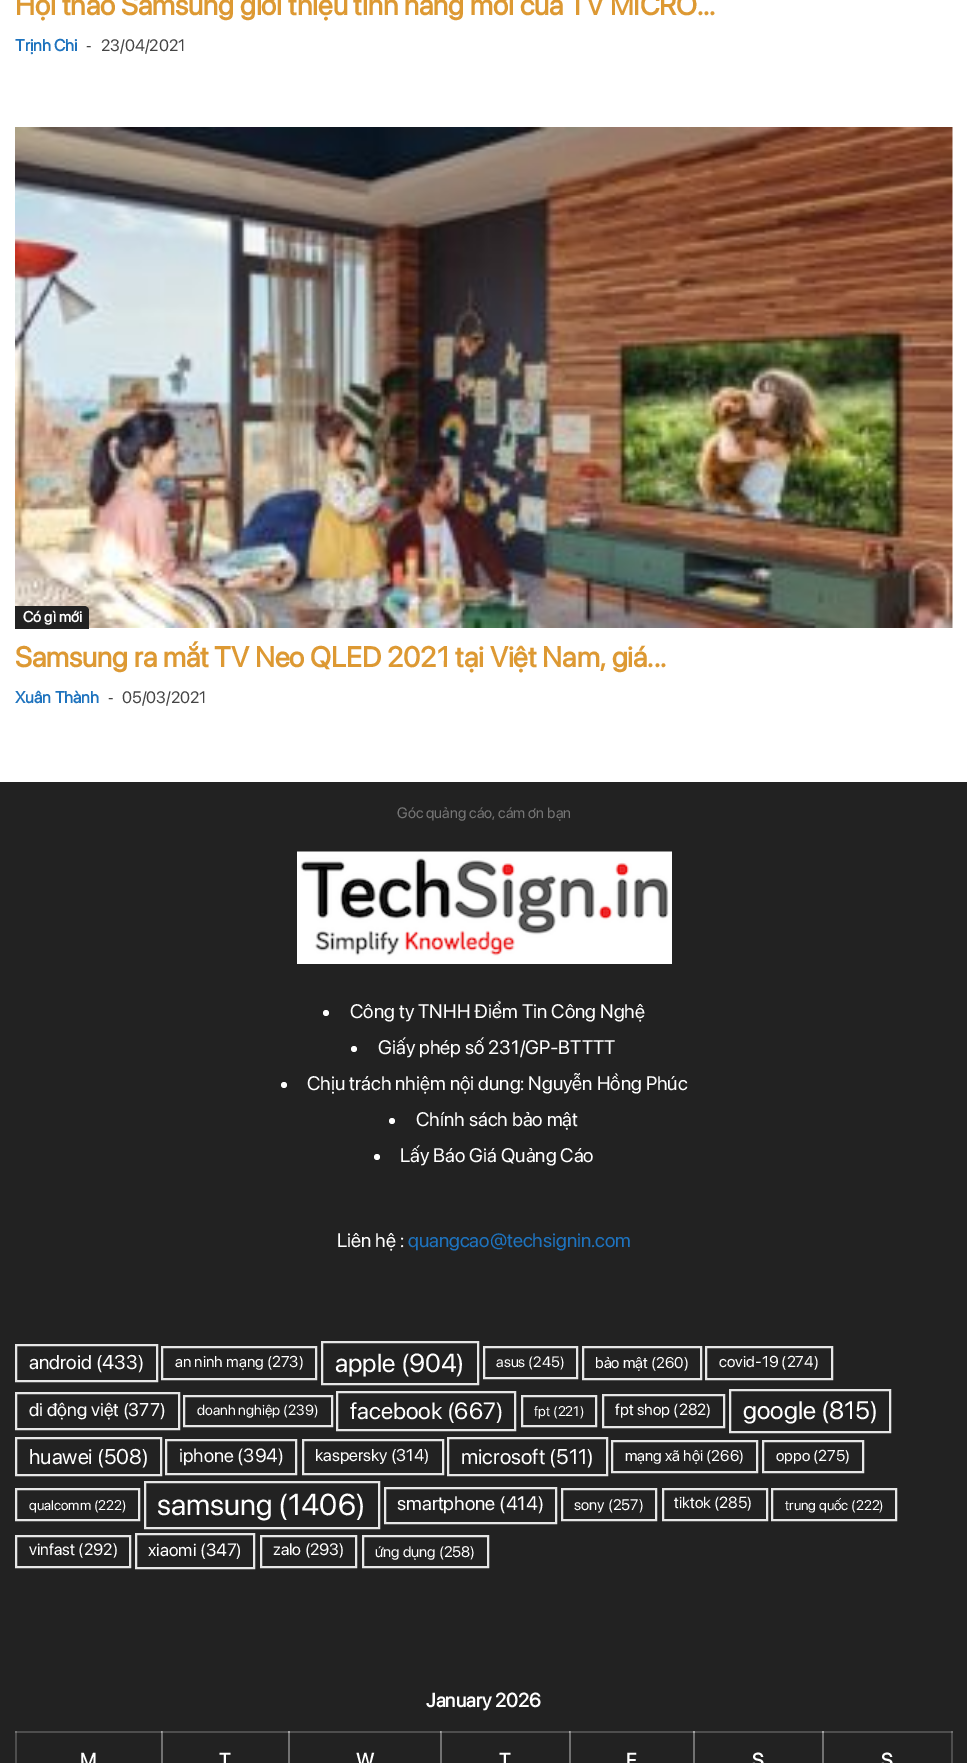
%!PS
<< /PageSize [967 1763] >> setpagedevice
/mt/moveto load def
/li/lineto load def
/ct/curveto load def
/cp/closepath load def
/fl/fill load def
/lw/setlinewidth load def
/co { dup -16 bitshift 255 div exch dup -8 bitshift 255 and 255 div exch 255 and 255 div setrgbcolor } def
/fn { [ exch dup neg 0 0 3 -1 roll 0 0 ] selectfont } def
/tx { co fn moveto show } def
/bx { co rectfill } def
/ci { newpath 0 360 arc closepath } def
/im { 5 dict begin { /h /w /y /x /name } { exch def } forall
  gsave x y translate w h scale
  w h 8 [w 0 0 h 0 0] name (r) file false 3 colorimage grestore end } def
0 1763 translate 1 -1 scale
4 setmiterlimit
0 0 967 1763 16#FFFFFF bx
(media/1.raw) 15 127 938 501 im
16#222222 co
15 606 mt 84 606 li 87 606 89 608 89 611 ct 89 629 li 15 629 li cp fl
0 782 967 981 16#222222 bx
15 1731 2 32 16#4E4E4E bx
15 1731 147 2 16#4E4E4E bx
15 1731 2 2 16#717171 bx
161 1731 2 32 16#717171 bx
161 1731 129 2 16#4E4E4E bx
161 1731 2 2 16#8D8D8D bx
161 1731 1 2 16#A4A4A4 bx
288 1731 2 32 16#717171 bx
288 1731 153 2 16#4E4E4E bx
288 1731 2 2 16#A4A4A4 bx
440 1731 2 32 16#717171 bx
440 1731 130 2 16#4E4E4E bx
440 1731 2 2 16#8D8D8D bx
440 1731 1 2 16#A4A4A4 bx
569 1731 2 32 16#717171 bx
569 1731 126 2 16#4E4E4E bx
569 1731 2 2 16#8D8D8D bx
569 1731 1 2 16#A4A4A4 bx
693 1731 2 32 16#717171 bx
693 1731 131 2 16#4E4E4E bx
693 1731 2 2 16#A4A4A4 bx
822 1731 2 32 16#717171 bx
951 1731 2 32 16#4E4E4E bx
(media/2.raw) 297 851 375 113 im
16#FFFFFF co
326 1013 3 ci fl
354 1049 3 ci fl
284 1085 3 ci fl
392 1121 3 ci fl
377 1157 3 ci fl
16#E6E6E6 co
2 lw
16 1345 141 36 rectstroke
162 1347 154 32 rectstroke
322 1342 156 42 rectstroke
484 1347 93 31 rectstroke
583 1347 118 32 rectstroke
706 1347 126 32 rectstroke
16 1393 163 36 rectstroke
184 1396 148 30 rectstroke
337 1392 178 38 rectstroke
522 1396 74 30 rectstroke
603 1395 121 32 rectstroke
730 1390 160 42 rectstroke
16 1438 145 37 rectstroke
166 1440 130 34 rectstroke
303 1440 140 34 rectstroke
448 1438 159 37 rectstroke
612 1441 145 31 rectstroke
763 1441 100 31 rectstroke
16 1489 123 31 rectstroke
145 1482 234 46 rectstroke
385 1488 171 35 rectstroke
562 1489 94 31 rectstroke
663 1489 104 31 rectstroke
772 1489 124 31 rectstroke
16 1536 114 31 rectstroke
136 1534 118 34 rectstroke
261 1536 95 31 rectstroke
363 1536 125 31 rectstroke
822 1731 131 2 16#4E4E4E bx
822 1731 2 2 16#A4A4A4 bx
951 1731 2 2 16#717171 bx
(Hội thảo Samsung giới thiệu tính năng mới của TV MICRO...) 15 15 /SFProDisplay-Bold 28.5 16#DD9933 tx
(Trịnh Chi) 15 51 /SFProDisplay-Bold 16.5 16#1E73BE tx
(-) 86 51 /OpenSans-Regular 16.5 16#444444 tx
(23/04/2021) 101 51 /SFProDisplay-Regular 16.5 16#444444 tx
(Có gì mới) 23 622 /SFProDisplay-Bold 15 16#FFFFFF tx
(Samsung ra mắt TV Neo QLED 2021 tại Việt Nam, giá...) 15 667 /SFProDisplay-Bold 28.5 16#DD9933 tx
(Xuân Thành) 15 703 /SFProDisplay-Bold 16.5 16#1E73BE tx
(-) 108 703 /OpenSans-Regular 16.5 16#444444 tx
(05/03/2021) 122 703 /SFProDisplay-Regular 16.5 16#444444 tx
(Góc quảng cáo, cám ơn bạn) 397 818 /SFProDisplay-Regular 15 16#767676 tx
(Công ty TNHH Điểm Tin Công Nghệ) 350 1018 /SFProDisplay-Regular 19.5 16#FFFFFF tx
(Giấy phép số 231/GP-BTTTT) 378 1054 /SFProDisplay-Regular 19.5 16#FFFFFF tx
(Chịu trách nhiệm nội dung: Nguyễn Hồng Phúc) 307 1090 /SFProDisplay-Regular 19.5 16#FFFFFF tx
(Chính sách bảo mật) 416 1126 /SFProDisplay-Regular 19.5 16#FFFFFF tx
(Lấy Báo Giá Quảng Cáo) 400 1162 /SFProDisplay-Regular 19.5 16#FFFFFF tx
(Liên hệ :) 337 1247 /SFProDisplay-Regular 19.5 16#FFFFFF tx
(quangcao@techsignin.com) 408 1247 /SFProDisplay-Regular 19.5 16#1E73BE tx
(android \(433\)) 29 1369 /SFProDisplay-Regular 19.75 16#FFFFFF tx
(an ninh mạng \(273\)) 175 1367 /SFProDisplay-Regular 15.75 16#FFFFFF tx
(apple \(904\)) 335 1372 /SFProDisplay-Regular 26 16#FFFFFF tx
(asus \(245\)) 496 1367 /SFProDisplay-Regular 15 16#FFFFFF tx
(bảo mật \(260\)) 595 1368 /SFProDisplay-Regular 15.5 16#FFFFFF tx
(covid-19 \(274\)) 719 1367 /SFProDisplay-Regular 15.75 16#FFFFFF tx
(di động việt \(377\)) 29 1416 /SFProDisplay-Regular 18.5 16#FFFFFF tx
(doanh nghiệp \(239\)) 197 1415 /SFProDisplay-Regular 14.5 16#FFFFFF tx
(facebook \(667\)) 350 1419 /SFProDisplay-Regular 23.5 16#FFFFFF tx
(fpt \(221\)) 534 1416 /SFProDisplay-Regular 14 16#FFFFFF tx
(fpt shop \(282\)) 615 1415 /SFProDisplay-Regular 16 16#FFFFFF tx
(google \(815\)) 743 1419 /SFProDisplay-Regular 25.25 16#FFFFFF tx
(huawei \(508\)) 29 1464 /SFProDisplay-Regular 21.25 16#FFFFFF tx
(iphone \(394\)) 179 1462 /SFProDisplay-Regular 19 16#FFFFFF tx
(kaspersky \(314\)) 315 1461 /SFProDisplay-Regular 17 16#FFFFFF tx
(microsoft \(511\)) 461 1464 /SFProDisplay-Regular 21.25 16#FFFFFF tx
(mạng xã hội \(266\)) 625 1461 /SFProDisplay-Regular 15.5 16#FFFFFF tx
(oppo \(275\)) 776 1461 /SFProDisplay-Regular 15.75 16#FFFFFF tx
(qualcomm \(222\)) 29 1510 /SFProDisplay-Regular 14 16#FFFFFF tx
(samsung \(1406\)) 157 1515 /SFProDisplay-Regular 30 16#FFFFFF tx
(smartphone \(414\)) 397 1510 /SFProDisplay-Regular 19.5 16#FFFFFF tx
(sony \(257\)) 574 1510 /SFProDisplay-Regular 15.25 16#FFFFFF tx
(tiktok \(285\)) 674 1508 /SFProDisplay-Regular 16 16#FFFFFF tx
(trung quốc \(222\)) 785 1510 /SFProDisplay-Regular 14 16#FFFFFF tx
(vinfast \(292\)) 29 1555 /SFProDisplay-Regular 16.5 16#FFFFFF tx
(xiaomi \(347\)) 148 1556 /SFProDisplay-Regular 17.75 16#FFFFFF tx
(zalo \(293\)) 273 1555 /SFProDisplay-Regular 16.5 16#FFFFFF tx
(ứng dụng \(258\)) 375 1557 /SFProDisplay-Regular 15.25 16#FFFFFF tx
(January 2026) 426 1707 /SFProDisplay-Bold 19.5 16#FFFFFF tx
(M) 80 1767 /SFProDisplay-Bold 19.5 16#FFFFFF tx
(T) 219 1767 /SFProDisplay-Bold 19.5 16#FFFFFF tx
(W) 356 1767 /SFProDisplay-Bold 19.5 16#FFFFFF tx
(T) 499 1767 /SFProDisplay-Bold 19.5 16#FFFFFF tx
(F) 626 1767 /SFProDisplay-Bold 19.5 16#FFFFFF tx
(S) 752 1767 /SFProDisplay-Bold 19.5 16#FFFFFF tx
(S) 881 1767 /SFProDisplay-Bold 19.5 16#FFFFFF tx
showpage
